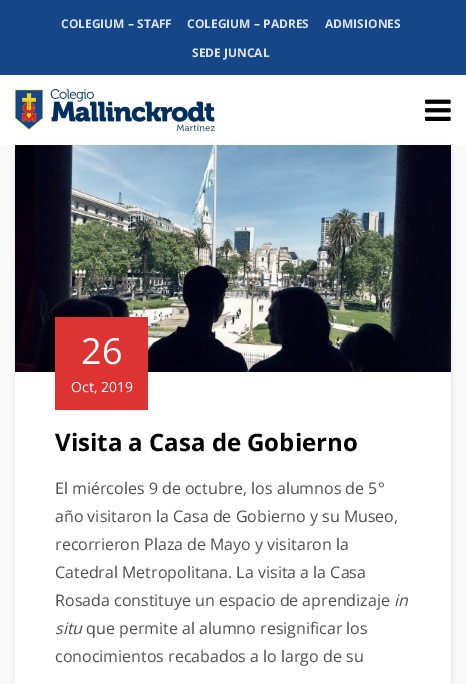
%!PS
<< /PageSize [466 684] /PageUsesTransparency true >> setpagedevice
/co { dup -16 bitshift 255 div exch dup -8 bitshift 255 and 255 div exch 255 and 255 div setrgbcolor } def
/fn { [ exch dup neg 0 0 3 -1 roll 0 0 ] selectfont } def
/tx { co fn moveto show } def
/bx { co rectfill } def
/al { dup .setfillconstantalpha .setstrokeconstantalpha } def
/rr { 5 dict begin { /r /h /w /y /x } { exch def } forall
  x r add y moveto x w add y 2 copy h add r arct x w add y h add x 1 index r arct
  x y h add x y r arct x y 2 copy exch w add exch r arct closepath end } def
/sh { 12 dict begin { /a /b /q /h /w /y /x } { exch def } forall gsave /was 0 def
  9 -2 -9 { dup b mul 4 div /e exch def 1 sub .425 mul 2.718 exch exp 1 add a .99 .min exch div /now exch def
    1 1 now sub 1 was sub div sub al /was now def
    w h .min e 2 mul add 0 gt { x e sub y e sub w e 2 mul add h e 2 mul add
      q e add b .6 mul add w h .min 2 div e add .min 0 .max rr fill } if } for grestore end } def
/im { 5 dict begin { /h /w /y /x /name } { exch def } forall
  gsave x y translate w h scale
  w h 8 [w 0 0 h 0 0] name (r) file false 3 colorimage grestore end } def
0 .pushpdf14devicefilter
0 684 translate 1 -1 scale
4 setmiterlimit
0 0 466 684 16#F9F9F9 bx
0 0 466 75 16#154788 bx
0 75 466 70 16#FFFFFF bx
(media/1.raw) 15 89 200 42 im
(media/2.raw) 425 99 26 22 im
16#000000 co
15 148 436 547 3 2.5 .1 sh
15 372 436 312 16#FFFFFF bx
(media/3.raw) 15 145 436 227 im
55 317 93 93 16#DD3333 bx
(COLEGIUM – STAFF) 61 28 /OpenSans-Bold 12 16#DCE3ED tx
(COLEGIUM – PADRES) 187 28 /OpenSans-Bold 12 16#DCE3ED tx
(ADMISIONES) 325 28 /OpenSans-Bold 12 16#DCE3ED tx
(SEDE JUNCAL) 192 57 /OpenSans-Bold 12 16#DCE3ED tx
(26) 81 364 /OpenSans-Regular 36 16#FFFFFF tx
(Oct, 2019) 71 392 /OpenSans-Regular 14 16#FFFFFF tx
(Visita a Casa de Gobierno) 55 451 /OpenSans-Bold 24 16#000000 tx
(El miércoles 9 de octubre, los alumnos de 5°) 55 494 /OpenSans-Regular 16 16#4F4F4F tx
(año visitaron la Casa de Gobierno y su Museo,) 55 522 /OpenSans-Regular 16 16#4F4F4F tx
(recorrieron Plaza de Mayo y visitaron la) 55 550 /OpenSans-Regular 16 16#4F4F4F tx
(Catedral Metropolitana. La visita a la Casa) 55 578 /OpenSans-Regular 16 16#4F4F4F tx
(Rosada constituye un espacio de aprendizaje) 55 606 /OpenSans-Regular 16 16#4F4F4F tx
(in) 394 606 /OpenSans-Italic 16 16#4F4F4F tx
(situ) 55 634 /OpenSans-Italic 16 16#4F4F4F tx
(que permite al alumno resignificar los) 86 634 /OpenSans-Regular 16 16#4F4F4F tx
(conocimientos recabados a lo largo de su) 55 662 /OpenSans-Regular 16 16#4F4F4F tx
.poppdf14devicefilter showpage
